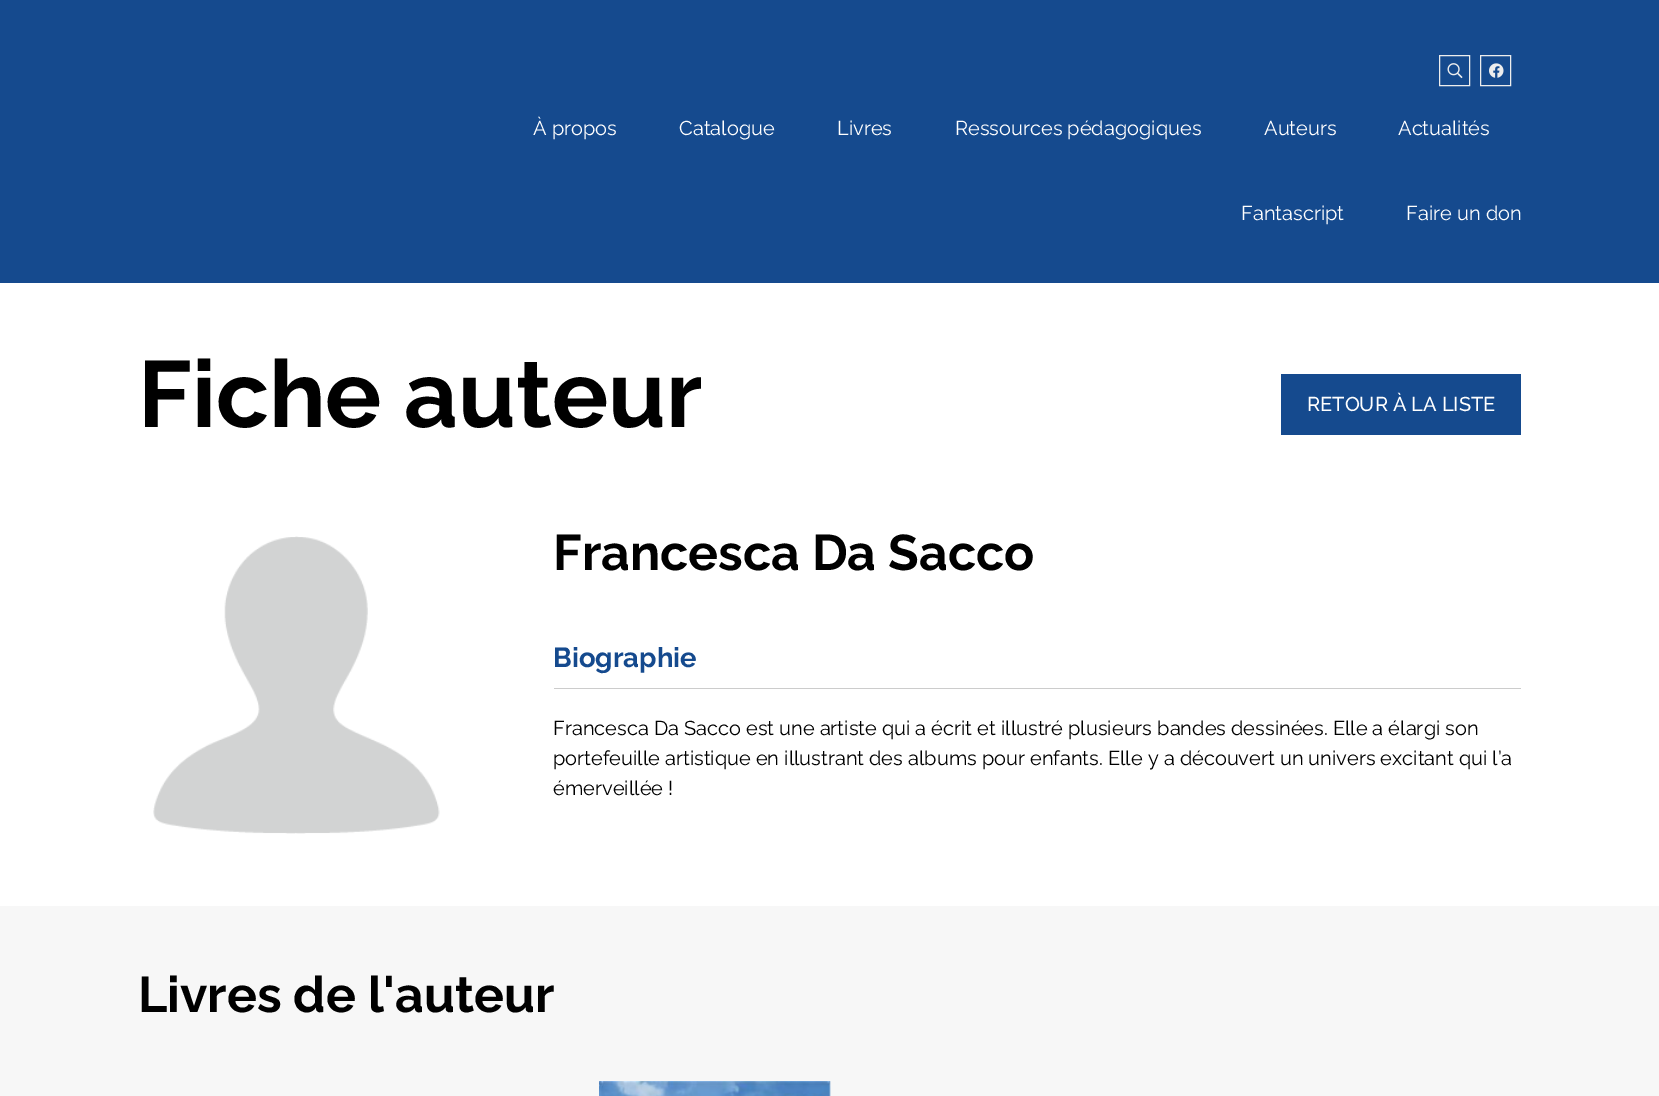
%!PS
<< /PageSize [1659 1096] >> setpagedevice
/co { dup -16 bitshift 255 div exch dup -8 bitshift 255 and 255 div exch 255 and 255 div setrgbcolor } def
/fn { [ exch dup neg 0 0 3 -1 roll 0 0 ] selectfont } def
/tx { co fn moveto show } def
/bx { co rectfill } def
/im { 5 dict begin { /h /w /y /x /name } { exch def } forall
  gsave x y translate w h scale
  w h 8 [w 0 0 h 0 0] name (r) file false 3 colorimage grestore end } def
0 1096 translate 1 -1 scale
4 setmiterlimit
0 0 1659 1096 16#FFFFFF bx
0 0 1659 283 16#154A8E bx
16#EDEDED co
1439.5 55.5 30 30 rectstroke
(media/1.raw) 1447 63 16 16 im
1480.5 55.5 30 30 rectstroke
(media/2.raw) 1489 63 15 15 im
1281 374 240 61 16#154A8E bx
(media/3.raw) 153 536 287 298 im
554 688 967 1 16#CCCCCC bx
0 906 1659 190 16#F7F7F7 bx
(media/4.raw) 599 1081 232 15 im
(À propos) 533 135 /Raleway-Regular 20 16#FFFFFF tx
(Catalogue) 679 135 /Raleway-Regular 20 16#FFFFFF tx
(Livres) 837 135 /Raleway-Regular 20 16#FFFFFF tx
(Ressources pédagogiques) 955 135 /Raleway-Regular 20 16#FFFFFF tx
(Auteurs) 1264 135 /Raleway-Regular 20 16#FFFFFF tx
(Actualités) 1398 135 /Raleway-Regular 20 16#FFFFFF tx
(Fantascript) 1241 220 /Raleway-Regular 20 16#FFFFFF tx
(Faire un don) 1406 220 /Raleway-Regular 20 16#FFFFFF tx
(Fiche auteur) 138 427 /Raleway-Bold 93.75 16#000000 tx
(RETOUR À LA LISTE) 1307 411 /Raleway-Medium 20 16#FFFFFF tx
(Francesca Da Sacco) 553 570 /Raleway-Bold 50 16#000000 tx
(Biographie) 553 667 /Raleway-Bold 27.5 16#154A8E tx
(Francesca Da Sacco est une artiste qui a écrit et illustré plusieurs bandes dessinées. Elle a élargi son) 553 735 /Raleway-Regular 20 16#000000 tx
(portefeuille artistique en illustrant des albums pour enfants. Elle y a découvert un univers excitant qui l’a) 553 765 /Raleway-Regular 20 16#000000 tx
(émerveillée !) 553 795 /Raleway-Regular 20 16#000000 tx
(Livres de l'auteur) 138 1012 /Raleway-Bold 50 16#000000 tx
showpage
